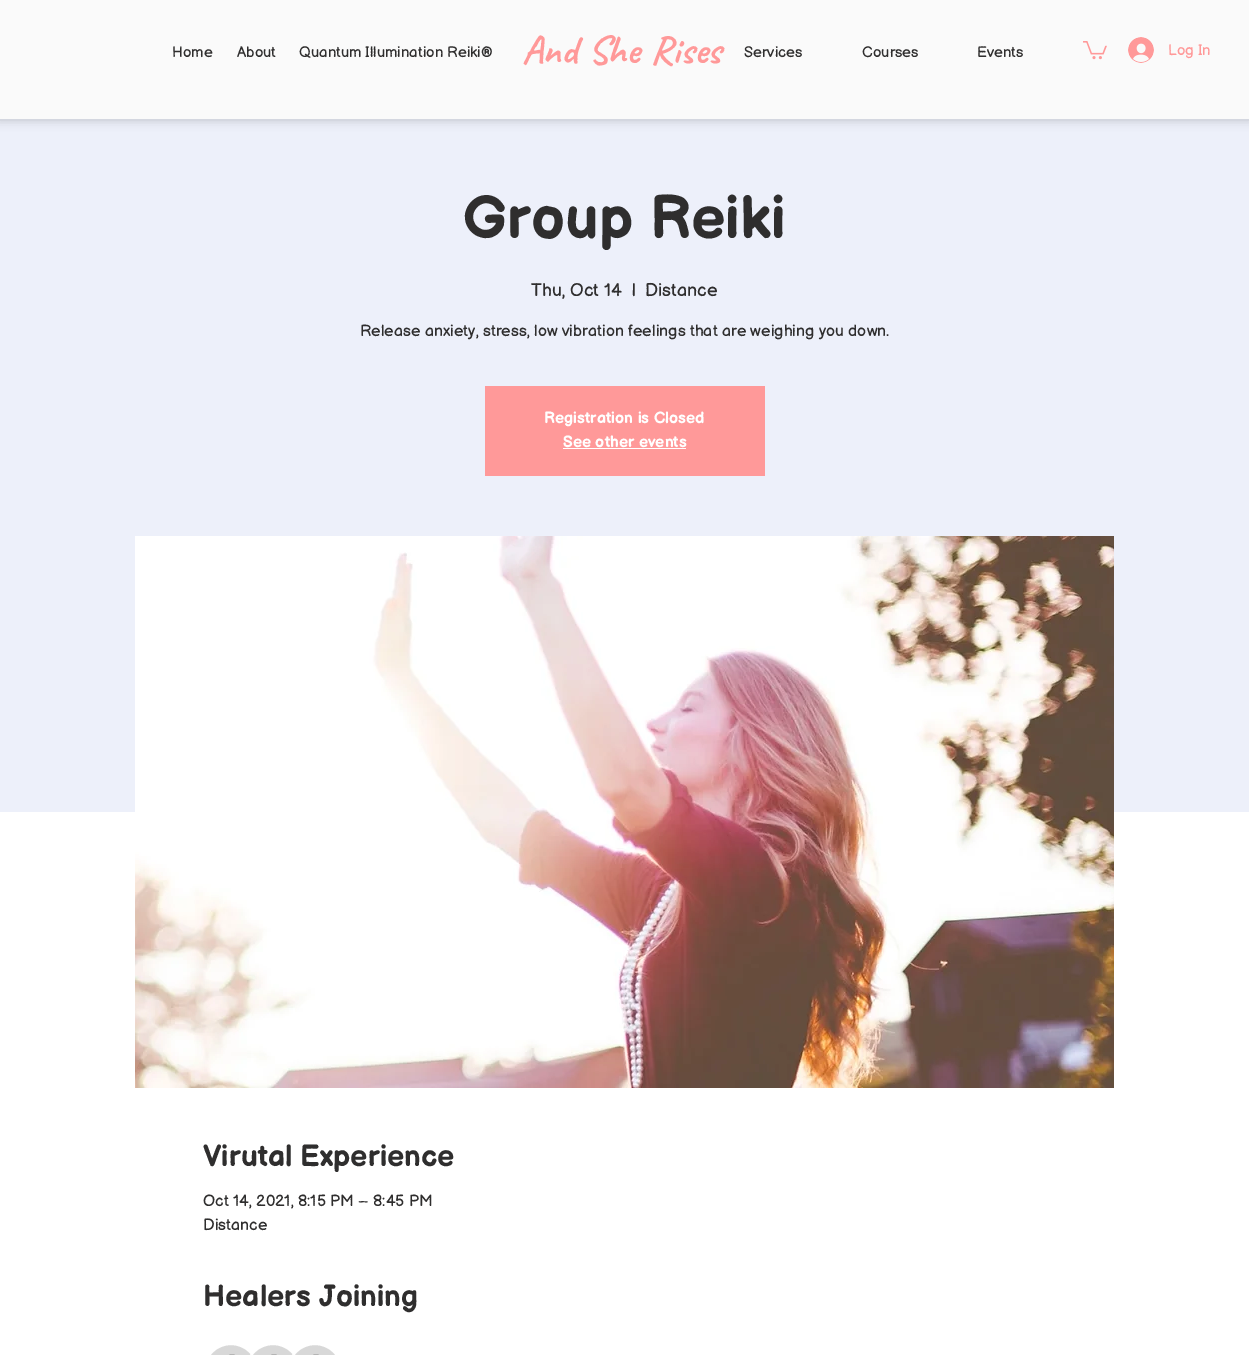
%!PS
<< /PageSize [1249 1355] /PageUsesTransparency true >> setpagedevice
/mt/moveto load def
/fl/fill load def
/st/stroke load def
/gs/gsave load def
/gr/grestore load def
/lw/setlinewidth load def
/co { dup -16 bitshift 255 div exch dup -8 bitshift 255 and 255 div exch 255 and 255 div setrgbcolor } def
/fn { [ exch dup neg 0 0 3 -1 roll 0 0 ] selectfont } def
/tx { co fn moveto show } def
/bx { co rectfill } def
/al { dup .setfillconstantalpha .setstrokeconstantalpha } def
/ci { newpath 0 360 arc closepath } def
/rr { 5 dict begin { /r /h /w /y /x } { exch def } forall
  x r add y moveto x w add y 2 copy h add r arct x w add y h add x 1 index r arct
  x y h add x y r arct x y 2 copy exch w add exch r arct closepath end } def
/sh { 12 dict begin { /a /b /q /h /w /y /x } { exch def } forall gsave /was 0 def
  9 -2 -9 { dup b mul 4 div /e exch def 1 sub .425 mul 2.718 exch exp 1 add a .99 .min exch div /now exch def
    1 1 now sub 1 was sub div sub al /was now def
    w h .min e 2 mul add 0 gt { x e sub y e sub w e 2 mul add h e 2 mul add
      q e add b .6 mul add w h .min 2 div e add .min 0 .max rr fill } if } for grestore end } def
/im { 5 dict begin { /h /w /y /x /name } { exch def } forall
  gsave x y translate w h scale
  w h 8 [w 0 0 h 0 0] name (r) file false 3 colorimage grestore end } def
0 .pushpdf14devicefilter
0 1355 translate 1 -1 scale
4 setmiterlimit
0 0 1249 1355 16#FFFFFF bx
0 119 1249 693 16#EDF0FA bx
16#000000 co
-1 -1 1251 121 0 5 .2 sh
0 0 1249 119 16#FAFAFA bx
(media/1.raw) 1083 41 24 19 im
(media/2.raw) 1128 37 26 26 im
485 386 280 90 16#FF9999 bx
563 448 123 1 16#FFFFFF bx
(media/3.raw) 135 536 979 552 im
16#D8D8D8 co
204 1344 54 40 27 rr gs fl gr
16#FFFFFF co
2 lw
st
16#969696 co
232 1364.5 10 ci fl
16#D8D8D8 co
246 1344 54 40 27 rr gs fl gr
16#FFFFFF co
st
16#969696 co
274 1364.5 10 ci fl
16#D8D8D8 co
288 1344 54 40 27 rr gs fl gr
16#FFFFFF co
st
16#969696 co
316 1364.5 10 ci fl
/Caveat-Bold 40 fn
16#FF9999 co
522 63 mt 1 0 32 (And She Rises) widthshow
(Home) 172 57 /BalsamiqSans-Regular 15 16#2F2E2E tx
(About) 237 57 /BalsamiqSans-Regular 15 16#2F2E2E tx
(Quantum Illumination Reiki®) 299 57 /BalsamiqSans-Regular 15 16#2F2E2E tx
(Services) 744 57 /BalsamiqSans-Regular 15 16#2F2E2E tx
(Courses) 862 57 /BalsamiqSans-Regular 15 16#2F2E2E tx
(Events) 977 57 /BalsamiqSans-Regular 15 16#2F2E2E tx
(Log In) 1168 55 /BalsamiqSans-Regular 15 16#FF9999 tx
(Group Reiki) 463 238 /BalsamiqSans-Bold 60 16#2F2E2E tx
(Thu, Oct 14) 531 296 /BalsamiqSans-Regular 18 16#2F2E2E tx
(|) 632 296 /BalsamiqSans-Regular 18 16#2F2E2E tx
(Distance) 645 296 /BalsamiqSans-Regular 18 16#2F2E2E tx
(Release anxiety, stress, low vibration feelings that are weighing you down.) 360 336 /BalsamiqSans-Regular 16 16#2F2E2E tx
(Registration is Closed) 544 423 /BalsamiqSans-Bold 16 16#FFFFFF tx
(See other events) 563 447 /BalsamiqSans-Bold 16 16#FFFFFF tx
(Virutal Experience) 203 1166 /BalsamiqSans-Bold 30 16#2F2E2E tx
(Oct 14, 2021, 8:15 PM – 8:45 PM) 203 1206 /BalsamiqSans-Regular 16 16#2F2E2E tx
(Distance) 203 1230 /BalsamiqSans-Regular 16 16#2F2E2E tx
(Healers Joining) 203 1306 /BalsamiqSans-Bold 30 16#2F2E2E tx
.poppdf14devicefilter showpage
